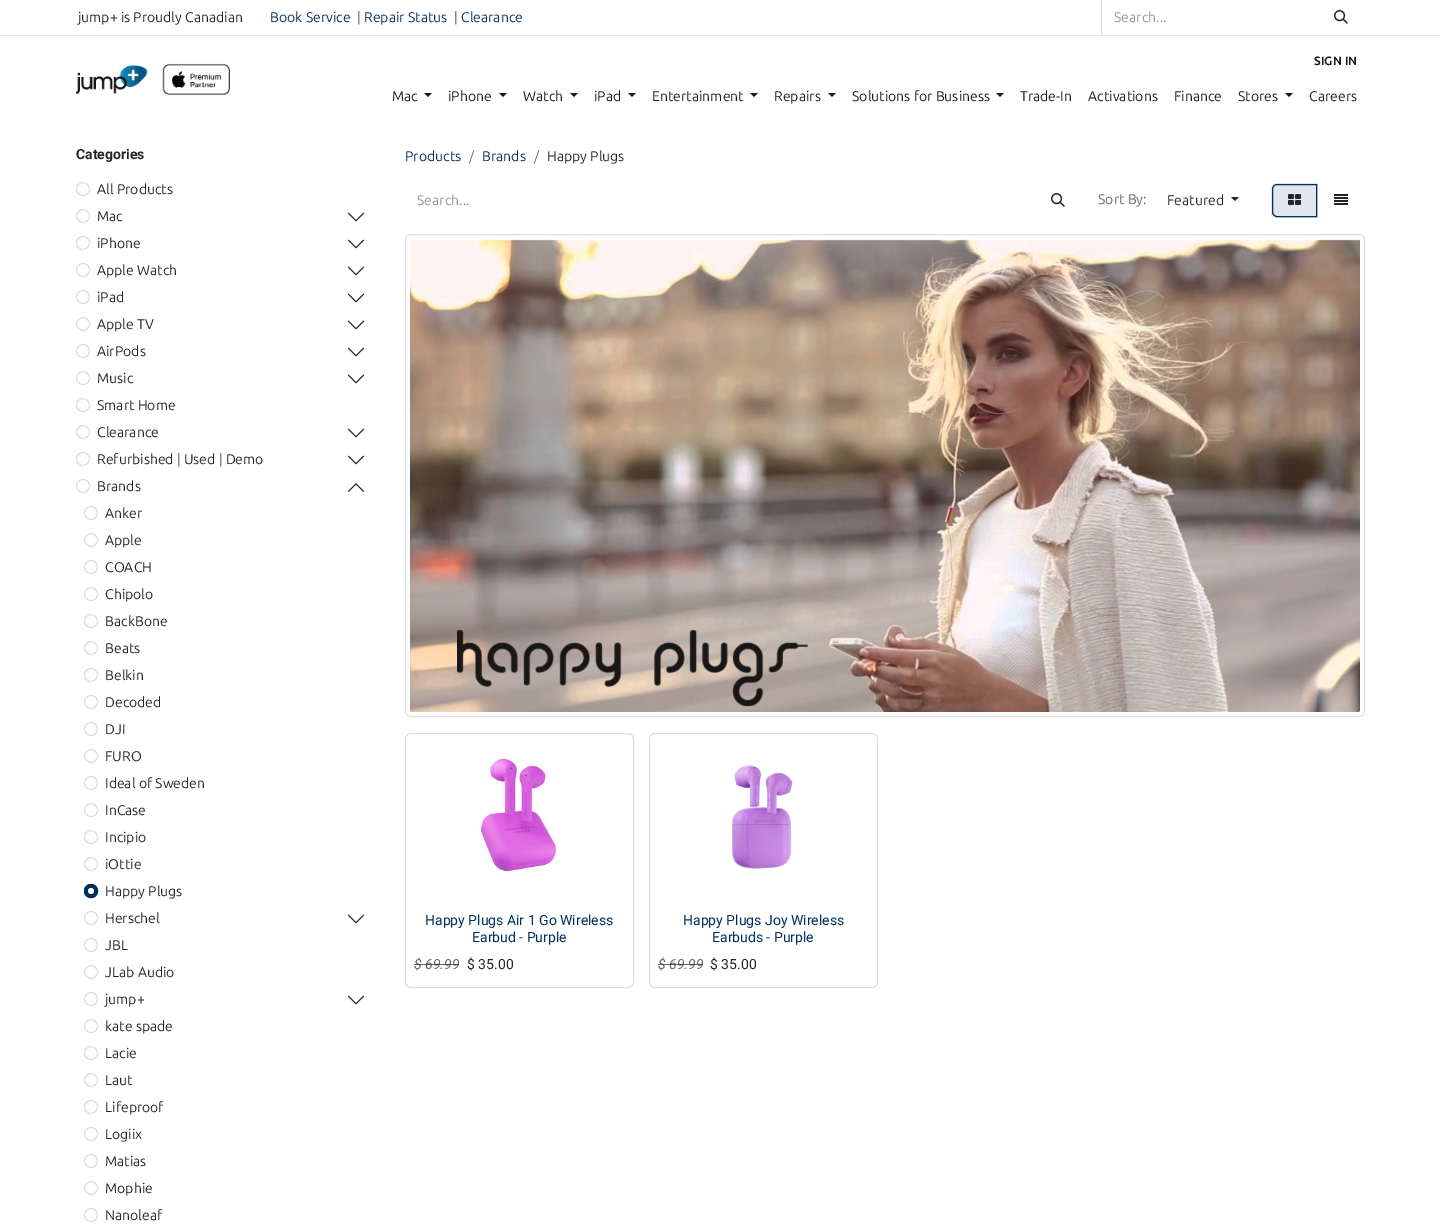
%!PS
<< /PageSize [1440 1231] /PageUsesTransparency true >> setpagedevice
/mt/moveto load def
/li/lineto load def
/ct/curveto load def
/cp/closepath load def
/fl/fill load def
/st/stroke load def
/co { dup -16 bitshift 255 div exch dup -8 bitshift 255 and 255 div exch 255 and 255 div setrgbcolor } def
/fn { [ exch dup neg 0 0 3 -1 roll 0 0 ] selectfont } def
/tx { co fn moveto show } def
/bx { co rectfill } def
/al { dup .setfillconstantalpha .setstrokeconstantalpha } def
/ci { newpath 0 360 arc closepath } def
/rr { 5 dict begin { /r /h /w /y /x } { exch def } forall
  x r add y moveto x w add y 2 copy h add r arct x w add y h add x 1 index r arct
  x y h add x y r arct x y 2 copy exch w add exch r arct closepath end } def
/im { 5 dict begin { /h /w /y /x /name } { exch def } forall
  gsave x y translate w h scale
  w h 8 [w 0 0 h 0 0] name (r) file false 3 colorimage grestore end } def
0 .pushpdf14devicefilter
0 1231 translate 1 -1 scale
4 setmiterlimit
0 0 1440 1231 16#FFFFFF bx
0 35 1440 1 16#E6E6E6 bx
1101 0 1 35 16#DEDEDF bx
(media/1.raw) 1334 10 14 14 im
(media/2.raw) 75 63 155 32 im
16#1A1A1A co
424 93 mt 432 93 li 428 97 li cp fl
499 93 mt 507 93 li 503 97 li cp fl
570 93 mt 578 93 li 574 97 li cp fl
628 93 mt 636 93 li 632 97 li cp fl
750 93 mt 758 93 li 754 97 li cp fl
828 93 mt 836 93 li 832 97 li cp fl
996 93 mt 1004 93 li 1000 97 li cp fl
1285 93 mt 1293 93 li 1289 97 li cp fl
16#DEDEDF co
83 189 6.5 ci st
83 216 6.5 ci st
(media/3.raw) 347 212 18 10 im
83 243 6.5 ci st
(media/3.raw) 347 239 18 10 im
83 270 6.5 ci st
(media/3.raw) 347 266 18 10 im
83 297 6.5 ci st
(media/3.raw) 347 293 18 10 im
83 324 6.5 ci st
(media/3.raw) 347 320 18 10 im
83 351 6.5 ci st
(media/3.raw) 347 347 18 10 im
83 378 6.5 ci st
(media/3.raw) 347 374 18 10 im
83 405 6.5 ci st
83 432 6.5 ci st
(media/3.raw) 347 428 18 10 im
83 459 6.5 ci st
(media/3.raw) 347 455 18 10 im
83 486 6.5 ci st
(media/4.raw) 347 483 18 9 im
91 513 6.5 ci st
91 540 6.5 ci st
91 567 6.5 ci st
91 594 6.5 ci st
91 621 6.5 ci st
91 648 6.5 ci st
91 675 6.5 ci st
91 702 6.5 ci st
91 729 6.5 ci st
91 756 6.5 ci st
91 783 6.5 ci st
91 810 6.5 ci st
91 837 6.5 ci st
91 864 6.5 ci st
16#01305E co
91 891 7 ci fl
16#FFFFFF co
91 891 3 ci fl
16#01305E co
91 891 6.5 ci st
16#DEDEDF co
91 918 6.5 ci st
(media/3.raw) 347 914 18 10 im
91 945 6.5 ci st
91 972 6.5 ci st
91 999 6.5 ci st
(media/3.raw) 347 995 18 10 im
91 1026 6.5 ci st
91 1053 6.5 ci st
91 1080 6.5 ci st
91 1107 6.5 ci st
91 1134 6.5 ci st
91 1161 6.5 ci st
91 1188 6.5 ci st
91 1215 6.5 ci st
(media/1.raw) 1051 193 14 14 im
16#212529 co
1231 197 mt 1239 197 li 1235 201 li cp fl
16#E0E6EC co
1277 183 mt 1318 183 li 1318 218 li 1277 218 li 1273.5 218 1271 215.5 1271 212 ct 1271 189 li 1271 185.5 1273.5 183 1277 183 ct cp fl
16#01305E co
1277 184.5 mt 1316.5 184.5 li 1316.5 216.5 li 1277 216.5 li 1274.5 216.5 1272.5 214.5 1272.5 212 ct 1272.5 189 li 1272.5 186.5 1274.5 184.5 1277 184.5 ct cp st
(media/5.raw) 1288 194 13 11 im
(media/6.raw) 1334 194 14 11 im
16#DEE2E6 co
405.5 234.5 959 482 5.5 rr st
(media/7.raw) 410 239 950 473 im
16#DEDEDF co
405.5 733.5 228 254 5.5 rr st
(media/8.raw) 479 756 78 117 im
649.5 733.5 228 254 5.5 rr st
(media/9.raw) 731 765 62 104 im
(jump+ is Proudly Canadian) 78 22 /Ubuntu-Regular 14 16#212529 tx
(Book Service) 270 22 /Ubuntu-Regular 14 16#01305E tx
(|) 357 22 /Ubuntu-Regular 14 16#212529 tx
(Repair Status) 364 22 /Ubuntu-Regular 14 16#01305E tx
(|) 454 22 /Ubuntu-Regular 14 16#212529 tx
(Clearance) 461 22 /Ubuntu-Regular 14 16#01305E tx
(Search...) 1114 22 /Ubuntu-Regular 14 16#909294 tx
(SIGN IN) 1314 65 /Ubuntu-Bold 12 16#1A1A1A tx
(Mac) 392 101 /Ubuntu-Regular 14 16#1A1A1A tx
(iPhone) 448 101 /Ubuntu-Regular 14 16#1A1A1A tx
(Watch) 523 101 /Ubuntu-Regular 14 16#1A1A1A tx
(iPad) 594 101 /Ubuntu-Regular 14 16#1A1A1A tx
(Entertainment) 652 101 /Ubuntu-Regular 14 16#1A1A1A tx
(Repairs) 774 101 /Ubuntu-Regular 14 16#1A1A1A tx
(Solutions for Business) 852 101 /Ubuntu-Regular 14 16#1A1A1A tx
(Trade-In) 1020 101 /Ubuntu-Regular 14 16#1A1A1A tx
(Activations) 1088 101 /Ubuntu-Regular 14 16#1A1A1A tx
(Finance) 1174 101 /Ubuntu-Regular 14 16#1A1A1A tx
(Stores) 1238 101 /Ubuntu-Regular 14 16#1A1A1A tx
(Careers) 1309 101 /Ubuntu-Regular 14 16#1A1A1A tx
(Categories) 76 159 /Roboto-Bold 14 16#212529 tx
(All Products) 97 194 /Ubuntu-Regular 14 16#212529 tx
(Mac) 97 221 /Ubuntu-Regular 14 16#212529 tx
(iPhone) 97 248 /Ubuntu-Regular 14 16#212529 tx
(Apple Watch) 97 275 /Ubuntu-Regular 14 16#212529 tx
(iPad) 97 302 /Ubuntu-Regular 14 16#212529 tx
(Apple TV) 97 329 /Ubuntu-Regular 14 16#212529 tx
(AirPods) 97 356 /Ubuntu-Regular 14 16#212529 tx
(Music) 97 383 /Ubuntu-Regular 14 16#212529 tx
(Smart Home) 97 410 /Ubuntu-Regular 14 16#212529 tx
(Clearance) 97 437 /Ubuntu-Regular 14 16#212529 tx
(Refurbished | Used | Demo) 97 464 /Ubuntu-Regular 14 16#212529 tx
(Brands) 97 491 /Ubuntu-Regular 14 16#212529 tx
(Anker) 105 518 /Ubuntu-Regular 14 16#212529 tx
(Apple) 105 545 /Ubuntu-Regular 14 16#212529 tx
(COACH) 105 572 /Ubuntu-Regular 14 16#212529 tx
(Chipolo) 105 599 /Ubuntu-Regular 14 16#212529 tx
(BackBone) 105 626 /Ubuntu-Regular 14 16#212529 tx
(Beats) 105 653 /Ubuntu-Regular 14 16#212529 tx
(Belkin) 105 680 /Ubuntu-Regular 14 16#212529 tx
(Decoded) 105 707 /Ubuntu-Regular 14 16#212529 tx
(DJI) 105 734 /Ubuntu-Regular 14 16#212529 tx
(FURO) 105 761 /Ubuntu-Regular 14 16#212529 tx
(Ideal of Sweden) 105 788 /Ubuntu-Regular 14 16#212529 tx
(InCase) 105 815 /Ubuntu-Regular 14 16#212529 tx
(Incipio) 105 842 /Ubuntu-Regular 14 16#212529 tx
(iOttie) 105 869 /Ubuntu-Regular 14 16#212529 tx
(Happy Plugs) 105 896 /Ubuntu-Regular 14 16#212529 tx
(Herschel) 105 923 /Ubuntu-Regular 14 16#212529 tx
(JBL) 105 950 /Ubuntu-Regular 14 16#212529 tx
(JLab Audio) 105 977 /Ubuntu-Regular 14 16#212529 tx
(jump+) 105 1004 /Ubuntu-Regular 14 16#212529 tx
(kate spade) 105 1031 /Ubuntu-Regular 14 16#212529 tx
(Lacie) 105 1058 /Ubuntu-Regular 14 16#212529 tx
(Laut) 105 1085 /Ubuntu-Regular 14 16#212529 tx
(Lifeproof) 105 1112 /Ubuntu-Regular 14 16#212529 tx
(Logiix) 105 1139 /Ubuntu-Regular 14 16#212529 tx
(Matias) 105 1166 /Ubuntu-Regular 14 16#212529 tx
(Mophie) 105 1193 /Ubuntu-Regular 14 16#212529 tx
(Nanoleaf) 105 1220 /Ubuntu-Regular 14 16#212529 tx
(Products) 405 161 /Ubuntu-Regular 14 16#01305E tx
(/) 469 161 /Ubuntu-Regular 14 16#6C757D tx
(Brands) 482 161 /Ubuntu-Regular 14 16#01305E tx
(/) 534 161 /Ubuntu-Regular 14 16#6C757D tx
(Happy Plugs) 547 161 /Ubuntu-Regular 14 16#212529 tx
(Search...) 417 205 /Ubuntu-Regular 14 16#909294 tx
(Sort By:) 1098 204 /Ubuntu-Regular 14 16#646669 tx
(Featured) 1167 205 /Ubuntu-Regular 14 16#212529 tx
(Happy Plugs Air 1 Go Wireless) 425 925 /Roboto-Regular 14 16#01305E tx
(Earbud - Purple) 472 942 /Roboto-Regular 14 16#01305E tx
($ 69.99) 414 969 /Roboto-Italic 14 16#646669 tx
0.7 al
414 964 11 1 16#212529 bx
425 964 34 1 16#212529 bx
1 al
($ 35.00) 467 969 /Roboto-Regular 14 16#212529 tx
(Happy Plugs Joy Wireless) 683 925 /Roboto-Regular 14 16#01305E tx
(Earbuds - Purple) 712 942 /Roboto-Regular 14 16#01305E tx
($ 69.99) 658 969 /Roboto-Italic 14 16#646669 tx
0.7 al
658 964 11 1 16#212529 bx
669 964 34 1 16#212529 bx
1 al
($ 35.00) 710 969 /Roboto-Regular 14 16#212529 tx
.poppdf14devicefilter showpage
